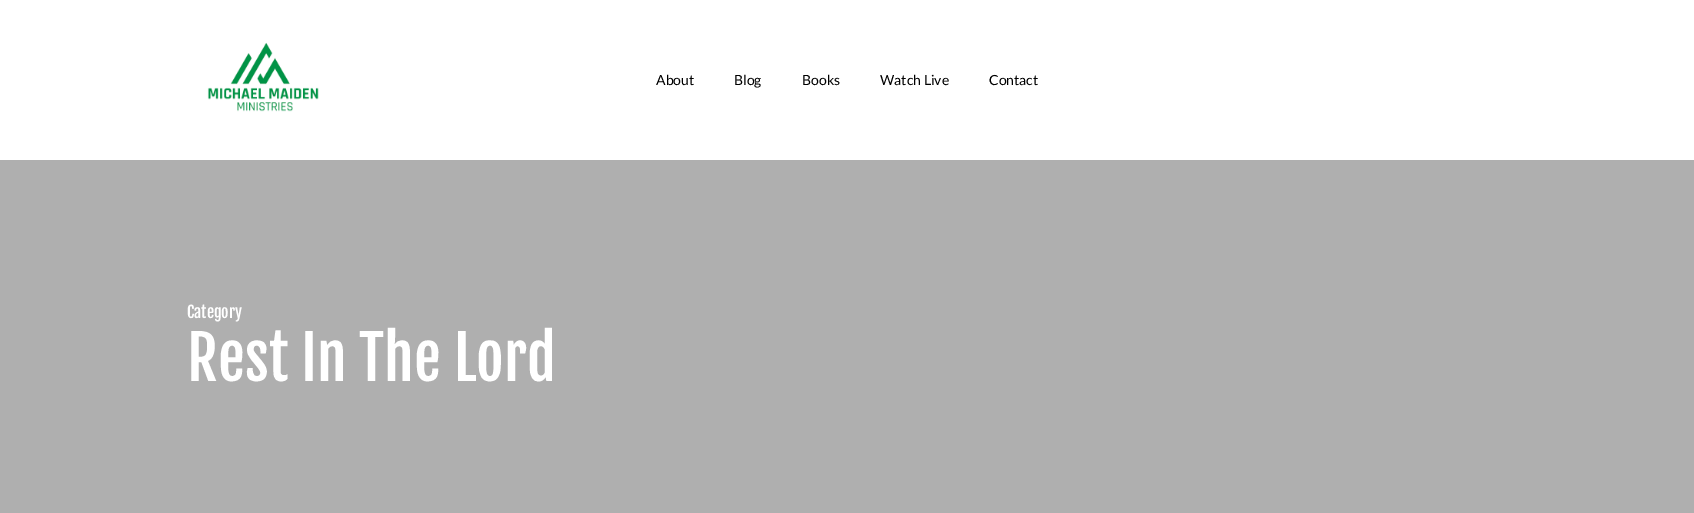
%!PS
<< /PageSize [1694 513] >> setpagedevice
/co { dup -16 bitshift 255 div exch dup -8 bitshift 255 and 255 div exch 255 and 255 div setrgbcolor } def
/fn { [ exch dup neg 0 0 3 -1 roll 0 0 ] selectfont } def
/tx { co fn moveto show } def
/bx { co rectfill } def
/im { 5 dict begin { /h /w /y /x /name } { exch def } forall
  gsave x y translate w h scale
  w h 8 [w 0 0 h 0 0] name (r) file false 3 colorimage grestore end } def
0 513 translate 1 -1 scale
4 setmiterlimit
0 0 1694 513 16#FFFFFF bx
(media/1.raw) 207 42 112 70 im
0 160 1694 353 16#AFAFAF bx
(About) 656 85 /Lato-Regular 14 16#000000 tx
(Blog) 734 85 /Lato-Regular 14 16#000000 tx
(Books) 802 85 /Lato-Regular 14 16#000000 tx
(Watch Live) 880 85 /Lato-Regular 14 16#000000 tx
(Contact) 989 85 /Lato-Regular 14 16#000000 tx
(Category) 187 318 /FjallaOne-Regular 16 16#FFFFFF tx
(Rest In The Lord) 187 381 /FjallaOne-Regular 60 16#FFFFFF tx
showpage
